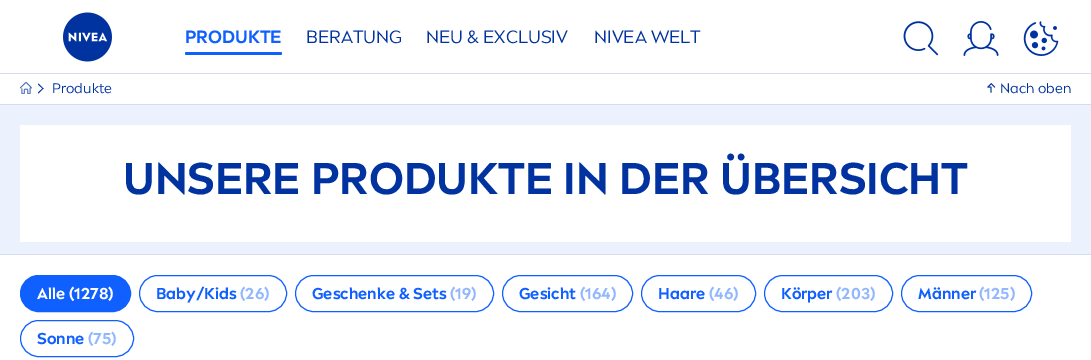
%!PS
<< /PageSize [1091 360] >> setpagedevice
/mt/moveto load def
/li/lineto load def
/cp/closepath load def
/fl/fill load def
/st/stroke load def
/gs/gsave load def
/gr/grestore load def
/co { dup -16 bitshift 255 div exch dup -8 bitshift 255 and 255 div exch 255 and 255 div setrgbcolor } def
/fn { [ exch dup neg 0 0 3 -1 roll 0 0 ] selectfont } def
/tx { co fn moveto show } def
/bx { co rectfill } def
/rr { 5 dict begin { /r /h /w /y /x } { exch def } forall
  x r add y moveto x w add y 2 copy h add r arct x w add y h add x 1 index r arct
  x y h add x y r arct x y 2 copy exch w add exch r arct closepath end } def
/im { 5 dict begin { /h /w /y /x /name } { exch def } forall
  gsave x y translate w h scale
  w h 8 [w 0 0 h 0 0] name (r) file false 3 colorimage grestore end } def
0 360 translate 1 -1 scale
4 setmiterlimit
0 0 1091 360 16#EBF1FD bx
0 0 1091 73 16#FFFFFF bx
(media/1.raw) 63 12 49 50 im
16#0F60FF co
185 52 97 3 1.5 rr fl
(media/2.raw) 903 21 36 35 im
(media/3.raw) 963 21 36 35 im
(media/4.raw) 1023 21 36 35 im
0 74 1091 30 16#FFFFFF bx
0 73 1091 1 16#D6DCEC bx
0 104 1091 1 16#D6DCEC bx
(media/5.raw) 20 82 12 12 im
16#0032A0 co
38.5 83.5 mt 43.5 88.5 li 43 89 li 38 84.5 li cp fl
43 88 mt 43.5 88.5 li 38.5 93.5 li 38 92.5 li cp fl
(media/6.raw) 987 83 9 10 im
20 125 1051 117 16#FFFFFF bx
0 255 1091 105 16#FFFFFF bx
0 254 1091 1 16#D6DCEC bx
16#0F60FF co
20.5 275.5 110 36 18 rr gs fl gr
st
139.5 275.5 147 36 18 rr st
295.5 275.5 198 36 18 rr st
502.5 275.5 130 36 18 rr st
641.5 275.5 114 36 18 rr st
764.5 275.5 128 36 18 rr st
901.5 275.5 130 36 18 rr st
20.5 320.5 113 36 18 rr st
(PRODUKTE) 185 43 /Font-Bold 18 16#0F60FF tx
(BERATUNG) 306 43 /Font-Regular 18 16#0032A0 tx
(NEU & EXCLUSIV) 426 43 /Font-Regular 18 16#0032A0 tx
(NIVEA WELT) 594 43 /Font-Regular 18 16#0032A0 tx
(Produkte) 52 93 /Font-Regular 14 16#0032A0 tx
(Nach oben) 1000 93 /Font-Regular 14 16#0032A0 tx
(UNSERE PRODUKTE IN DER ÜBERSICHT) 123 194 /Font-Bold 45 16#0032A0 tx
(Alle \(1278\)) 37 299 /Font-Bold 16 16#FFFFFF tx
(Baby/Kids) 156 299 /Font-Bold 16 16#0F60FF tx
(\(26\)) 240 299 /Font-Bold 16 16#92B7FF tx
(Geschenke & Sets) 312 299 /Font-Bold 16 16#0F60FF tx
(\(19\)) 450 299 /Font-Bold 16 16#92B7FF tx
(Gesicht) 519 299 /Font-Bold 16 16#0F60FF tx
(\(164\)) 580 299 /Font-Bold 16 16#92B7FF tx
(Haare) 658 299 /Font-Bold 16 16#0F60FF tx
(\(46\)) 709 299 /Font-Bold 16 16#92B7FF tx
(Körper) 781 299 /Font-Bold 16 16#0F60FF tx
(\(203\)) 836 299 /Font-Bold 16 16#92B7FF tx
(Männer) 918 299 /Font-Bold 16 16#0F60FF tx
(\(125\)) 979 299 /Font-Bold 16 16#92B7FF tx
(Sonne) 37 344 /Font-Bold 16 16#0F60FF tx
(\(75\)) 88 344 /Font-Bold 16 16#92B7FF tx
showpage
